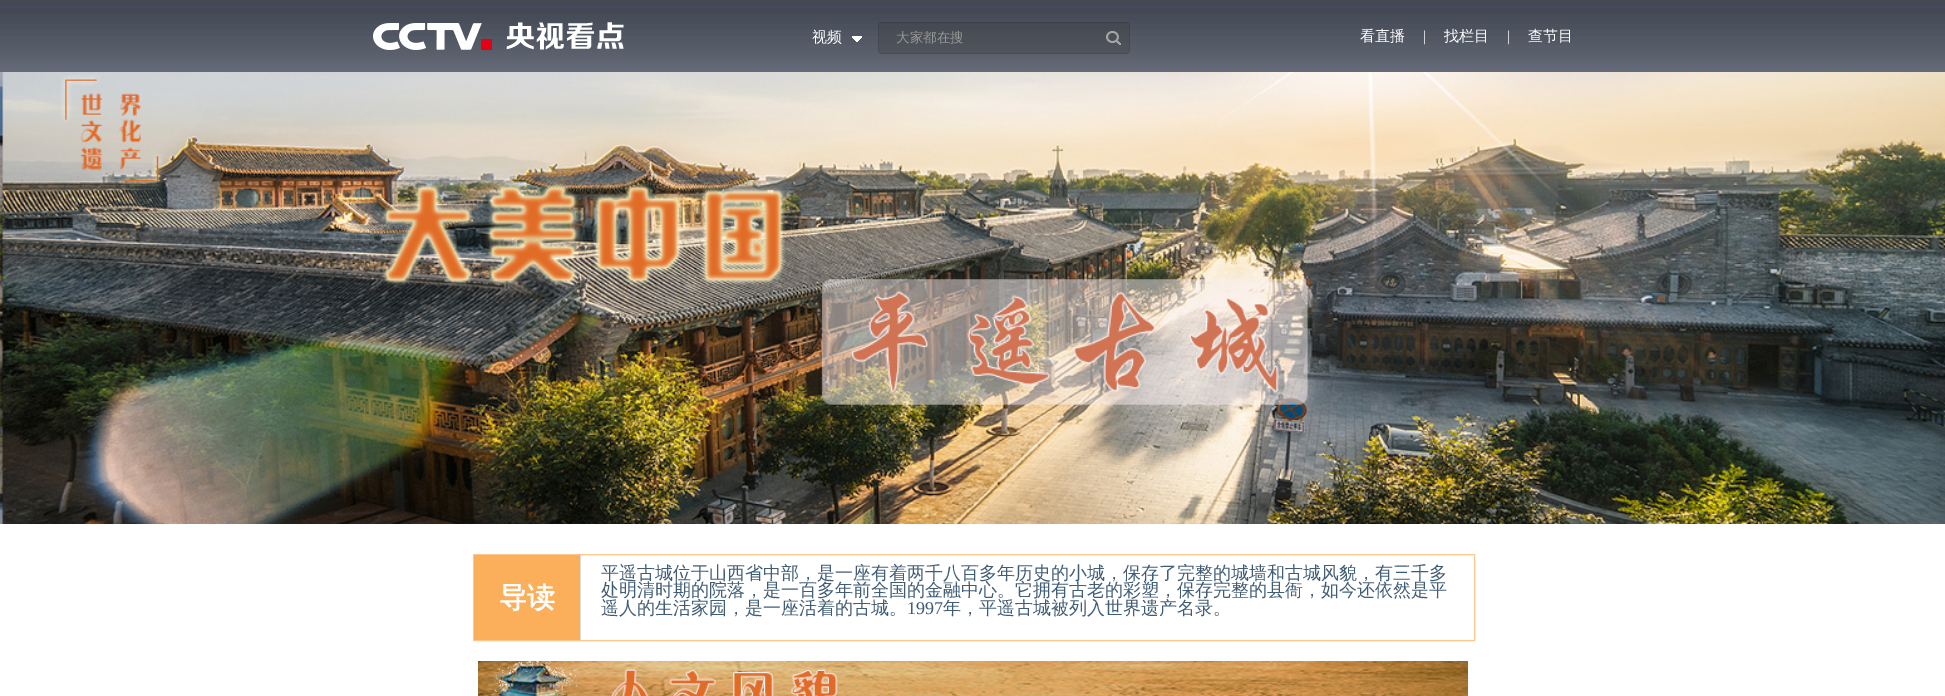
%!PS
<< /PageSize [1945 696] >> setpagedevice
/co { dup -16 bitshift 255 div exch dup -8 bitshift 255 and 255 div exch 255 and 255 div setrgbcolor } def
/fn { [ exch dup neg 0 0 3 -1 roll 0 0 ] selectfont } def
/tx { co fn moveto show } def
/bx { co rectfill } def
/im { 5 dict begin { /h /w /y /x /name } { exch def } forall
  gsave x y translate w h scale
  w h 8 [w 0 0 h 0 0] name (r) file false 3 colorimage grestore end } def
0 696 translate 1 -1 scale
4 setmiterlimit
0 0 1945 696 16#FFFFFF bx
(media/1.raw) 0 0 1945 72 im
(media/2.raw) 373 22 251 28 im
(media/3.raw) 852 36 10 6 im
(media/4.raw) 878 22 252 32 im
(media/5.raw) 1106 31 15 14 im
(media/6.raw) 0 72 1945 452 im
16#FDC68C co
473.5 554.5 1001 86 rectstroke
580 555 1 85 16#DADADA bx
474 555 106 85 16#FBAF5A bx
(media/7.raw) 478 661 990 35 im
(视频) 812 42 /WenQuanYiZenHei-Medium 15 16#FFFFFF tx
(大家都在搜) 896 42 /WenQuanYiZenHei-Medium 13.5 16#999999 tx
(看直播) 1360 41 /WenQuanYiZenHei-Medium 15 16#FFFFFF tx
(|) 1423 41 /LiberationSerif-Regular 15 16#FFFFFF tx
(找栏目) 1444 41 /WenQuanYiZenHei-Medium 15 16#FFFFFF tx
(|) 1507 41 /LiberationSerif-Regular 15 16#FFFFFF tx
(查节目) 1528 41 /WenQuanYiZenHei-Medium 15 16#FFFFFF tx
(导读) 499 607 /WenQuanYiZenHei-Bold 28 16#FFFFFF tx
(平遥古城位于山西省中部，是一座有着两千八百多年历史的小城，保存了完整的城墙和古城风貌，有三千多) 601 579 /WenQuanYiZenHei-Medium 18 16#405D76 tx
(处明清时期的院落，是一百多年前全国的金融中心。它拥有古老的彩塑，保存完整的县衙，如今还依然是平) 601 596 /WenQuanYiZenHei-Medium 18 16#405D76 tx
(遥人的生活家园，是一座活着的古城。) 601 614 /WenQuanYiZenHei-Medium 18 16#405D76 tx
(1997) 907 614 /LiberationSerif-Regular 18 16#405D76 tx
(年，平遥古城被列入世界遗产名录。) 943 614 /WenQuanYiZenHei-Medium 18 16#405D76 tx
showpage
